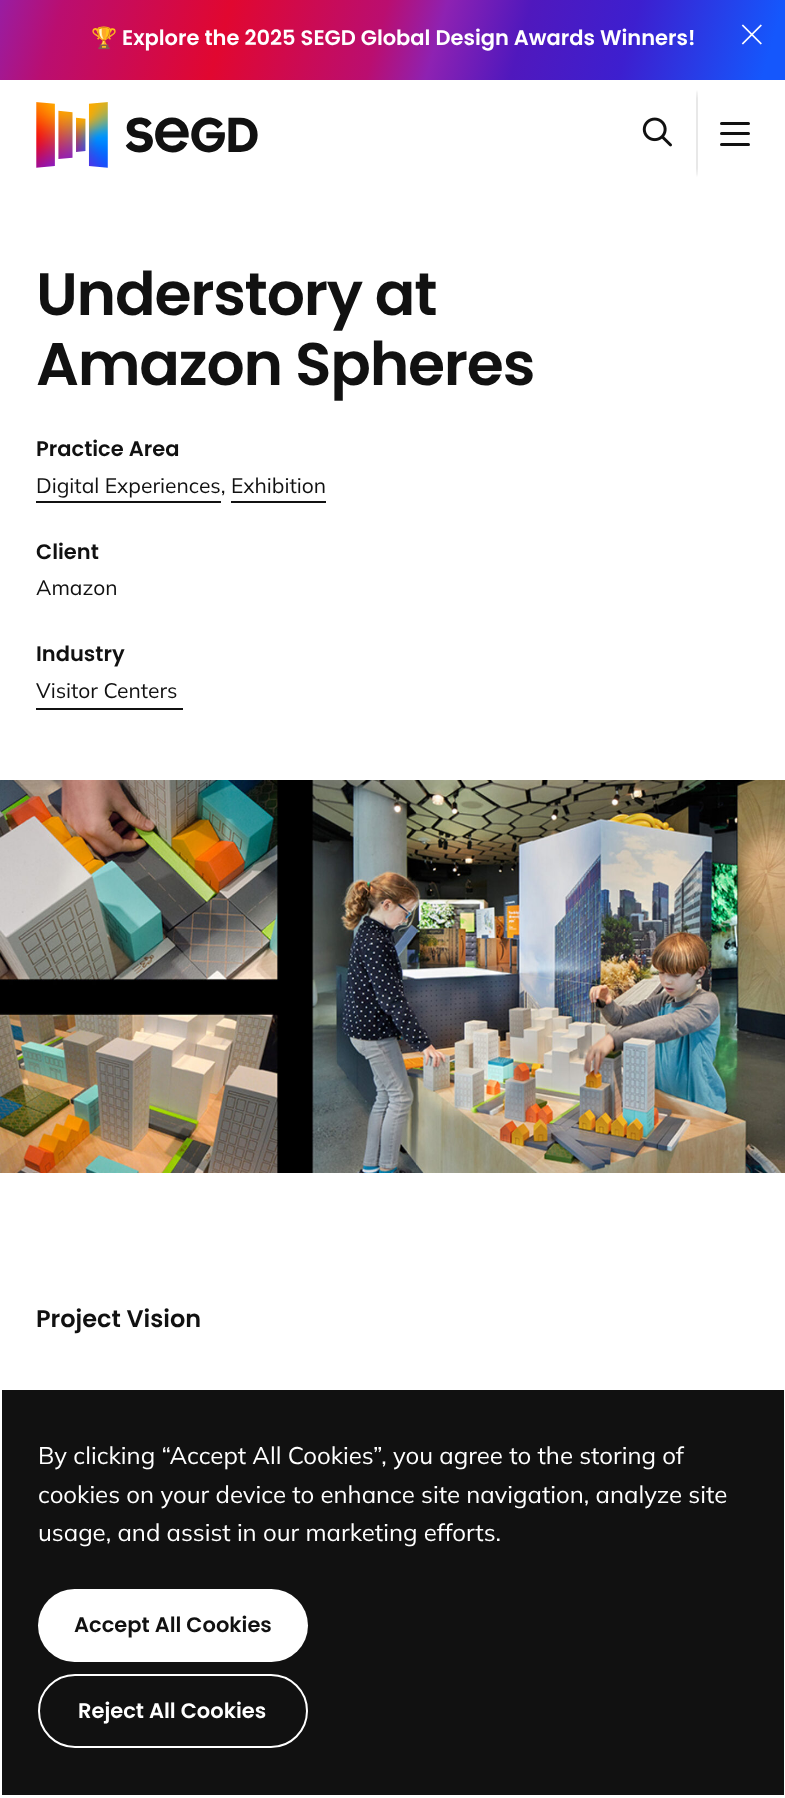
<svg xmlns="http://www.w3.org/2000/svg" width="785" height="1798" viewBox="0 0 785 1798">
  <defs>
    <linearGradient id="g1" gradientUnits="userSpaceOnUse" x1="-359" y1="-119" x2="752" y2="199"><stop offset="0.28" stop-color="#5018bd"/><stop offset="0.31" stop-color="#8e22b2"/><stop offset="0.38" stop-color="#ba0e70"/><stop offset="0.52" stop-color="#e10730"/><stop offset="0.65" stop-color="#ba0e70"/><stop offset="0.7" stop-color="#8e22b2"/><stop offset="0.77" stop-color="#5018bd"/><stop offset="0.86" stop-color="#3d1fcf"/><stop offset="0.98" stop-color="#1557fc"/></linearGradient>
    <linearGradient id="g2" gradientUnits="userSpaceOnUse" x1="697" y1="90" x2="697" y2="177"><stop offset="0" stop-color="#fff"/><stop offset="0.03" stop-color="#f4f4f4"/><stop offset="0.1" stop-color="#e8e8e8"/><stop offset="0.9" stop-color="#e8e8e8"/><stop offset="0.97" stop-color="#f4f4f4"/><stop offset="1" stop-color="#fff"/></linearGradient>
  </defs>
  <rect width="100%" height="100%" fill="#fff"/>
  <path d="M0 0h785v80H0z" fill="url(#g1)"/>
  <image x="741" y="24" width="21" height="21" href="img/1.png"/>
  <image x="36" y="102" width="222" height="66" href="img/2.png"/>
  <image x="642" y="117" width="30" height="30" href="img/3.png"/>
  <path d="M696 90h2v87H696z" fill="url(#g2)"/>
  <rect x="720" y="132" width="30" height="3" rx="1.5" fill="#111"/>
  <rect x="720" y="122" width="30" height="3" rx="1.5" fill="#111"/>
  <rect x="720" y="143" width="30" height="3" rx="1.5" fill="#111"/>
  <path d="M36 501h185v2H36z" fill="#111"/>
  <path d="M231 501h95v2H231z" fill="#111"/>
  <path d="M36 708h147v2H36z" fill="#111"/>
  <image x="0" y="780" width="785" height="393" href="img/4.png"/>
  <path d="M2 1390h782v405H2z" fill="#111"/>
  <rect x="38" y="1589" width="270" height="73" rx="36.5" fill="#fff"/>
  <rect x="39" y="1675" width="268" height="72" rx="36" fill="none" stroke="#fff" stroke-width="2"/>
  <text x="91" y="45" font-family="Noto Color Emoji" font-size="21" font-weight="bold" fill="#fff">🏆</text>
  <text x="122" y="45" font-family="Poppins" font-size="21" font-weight="600" fill="#fff">Explore the 2025 SEGD Global Design Awards Winners!</text>
  <g font-family="Poppins" font-size="60" font-weight="600" letter-spacing="-1.25" fill="#111">
    <text x="36" y="315">Understory at</text>
    <text x="36" y="385">Amazon Spheres</text>
  </g>
  <text x="36" y="456" font-family="Poppins" font-size="21" font-weight="600" fill="#111">Practice Area</text>
  <text x="36" y="493" font-family="Mulish" font-size="21" fill="#111">Digital Experiences, Exhibition</text>
  <text x="36" y="559" font-family="Poppins" font-size="21" font-weight="600" fill="#111">Client</text>
  <text x="36" y="595" font-family="Mulish" font-size="21" fill="#111">Amazon</text>
  <text x="36" y="661" font-family="Poppins" font-size="21" font-weight="600" fill="#111">Industry</text>
  <text x="36" y="698" font-family="Mulish" font-size="21" fill="#111">Visitor Centers</text>
  <text x="36" y="1327" font-family="Poppins" font-size="24" font-weight="600" fill="#111">Project Vision</text>
  <g font-family="Mulish" font-size="24" fill="#fff">
    <text x="38" y="1464">By clicking “Accept All Cookies”, you agree to the storing of</text>
    <text x="38" y="1503">cookies on your device to enhance site navigation, analyze site</text>
    <text x="38" y="1541">usage, and assist in our marketing efforts.</text>
  </g>
  <text x="74" y="1632" font-family="Poppins" font-size="21" font-weight="600" fill="#111">Accept All Cookies</text>
  <text x="78" y="1718" font-family="Poppins" font-size="21" font-weight="600" fill="#fff">Reject All Cookies</text>
</svg>
